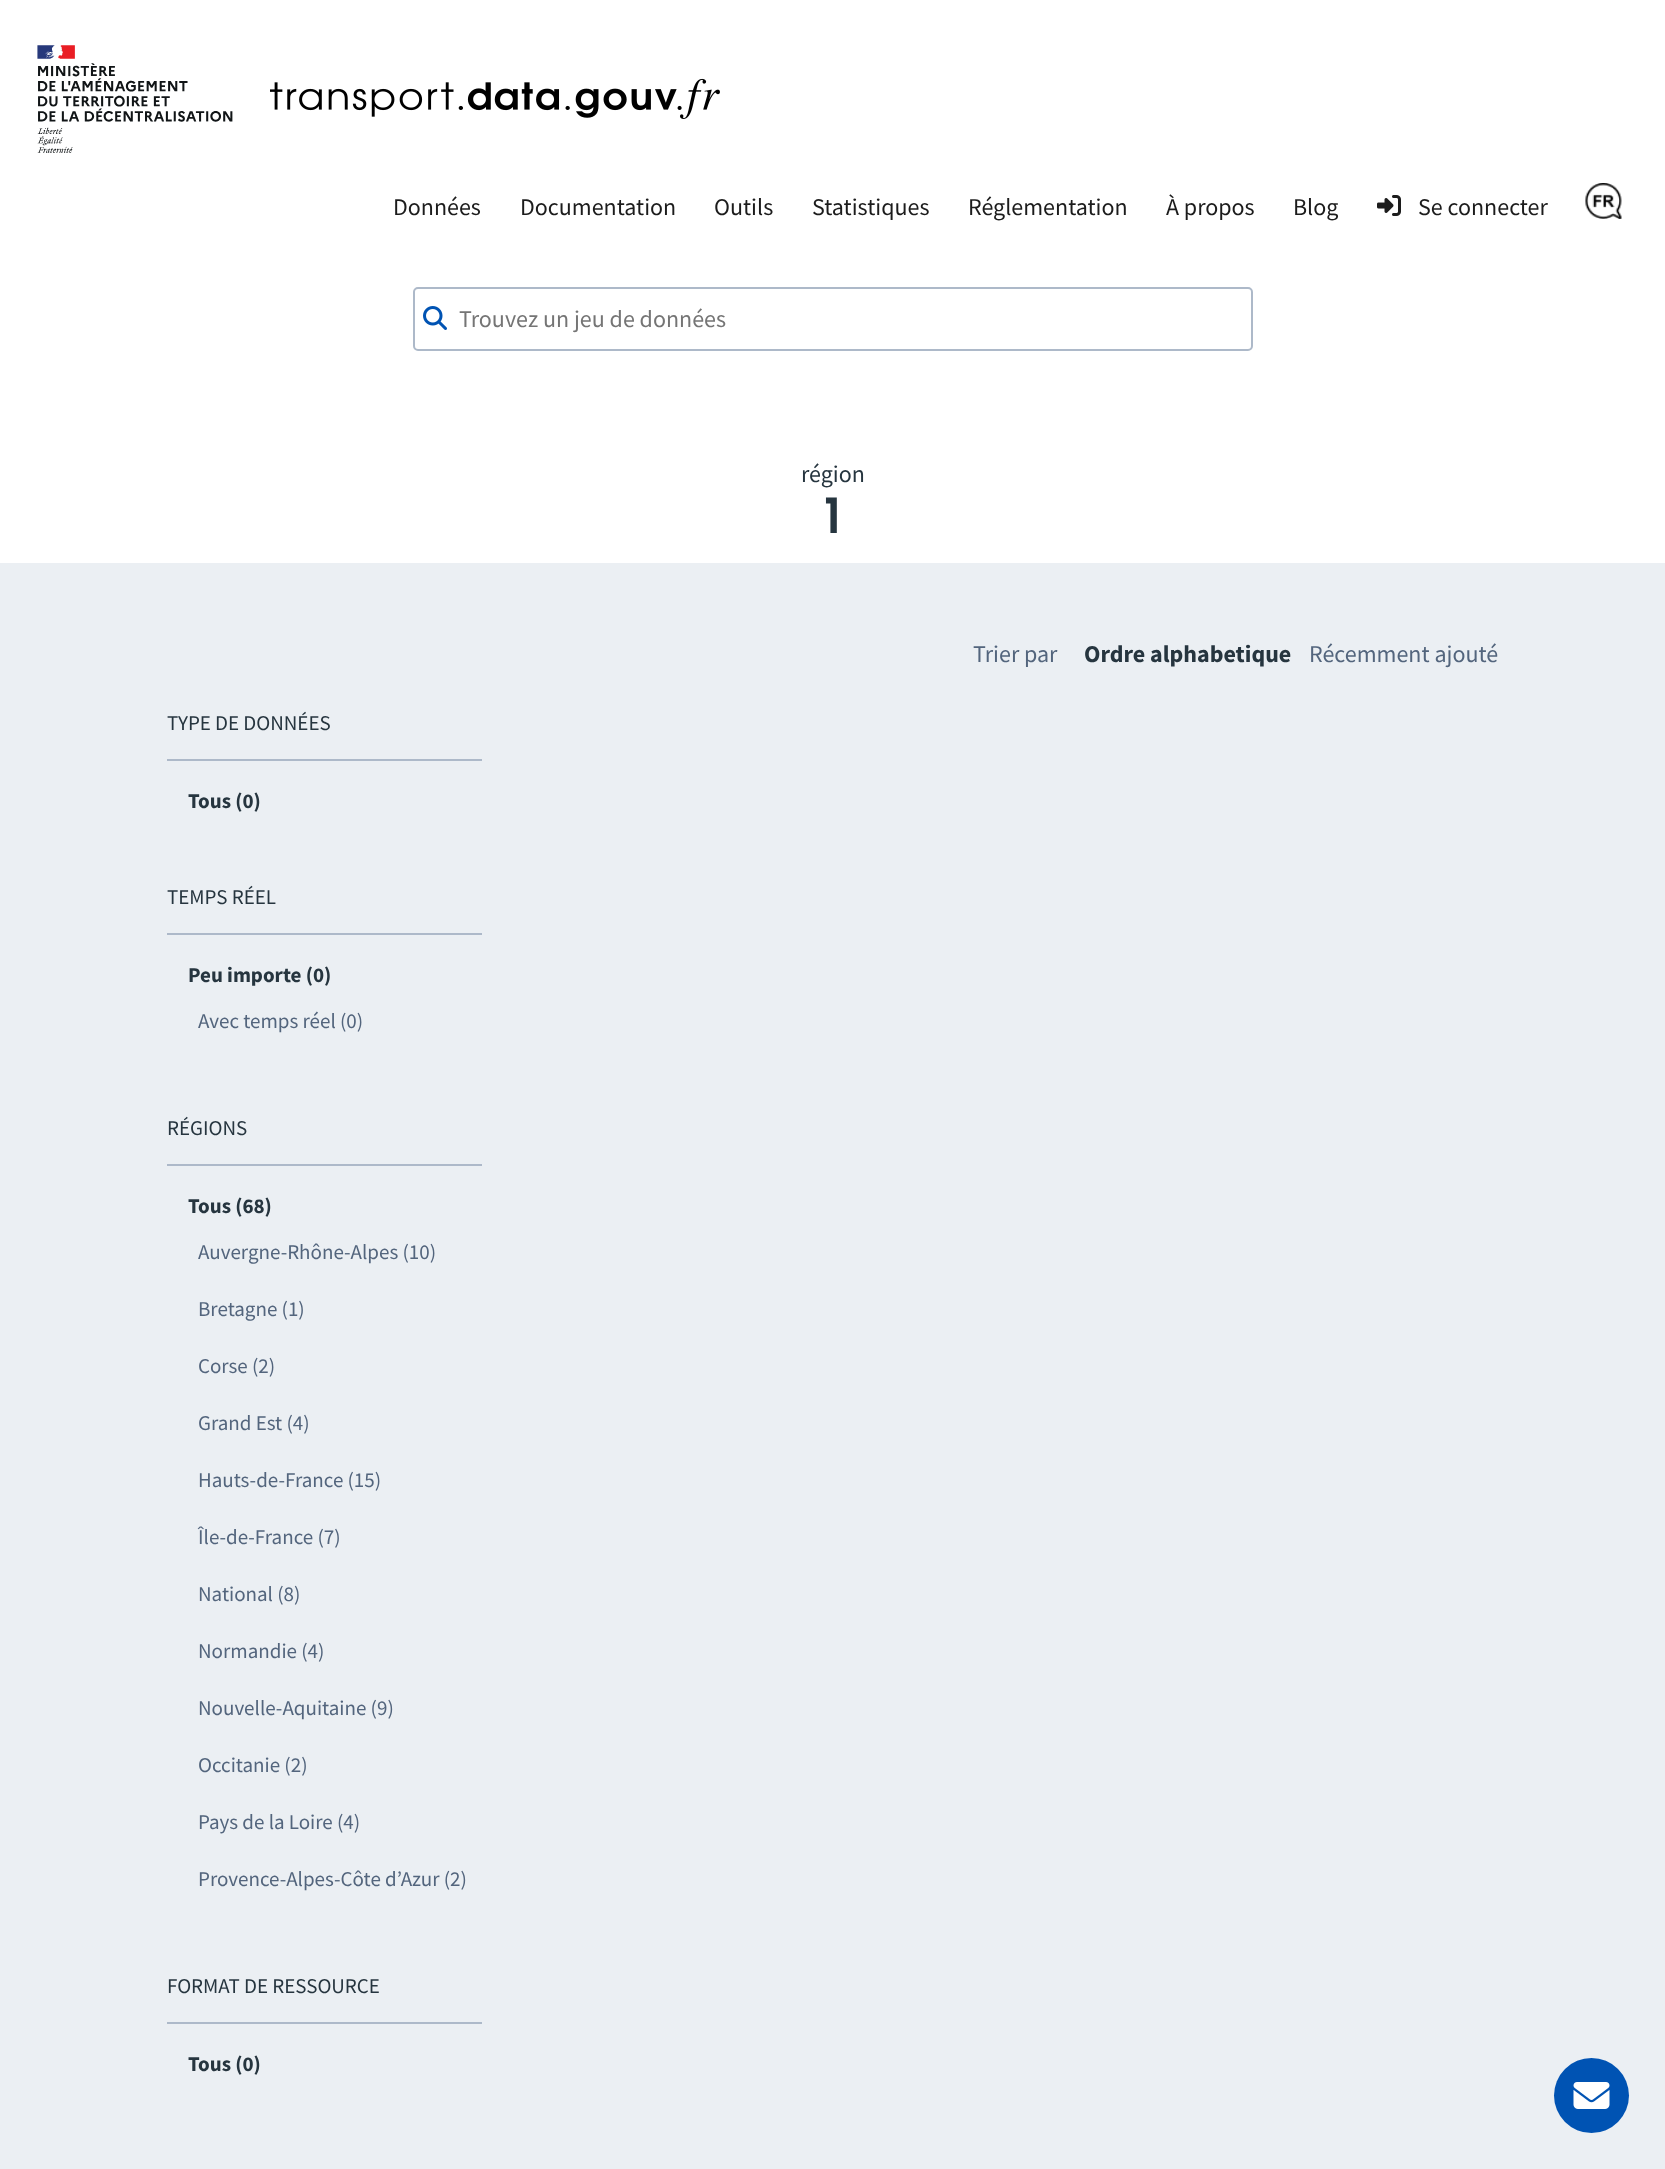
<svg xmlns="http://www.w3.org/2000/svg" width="1665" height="2169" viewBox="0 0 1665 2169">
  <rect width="100%" height="100%" fill="#fff"/>
  <image x="37" y="45" width="196" height="108" href="img/1.png"/>
  <image x="270" y="78" width="450" height="41" href="img/2.png"/>
  <image x="1377" y="195" width="24" height="21" href="img/3.png"/>
  <image x="1585" y="183" width="37" height="36" href="img/4.png"/>
  <rect x="414" y="288" width="838" height="62" rx="4" fill="none" stroke="#adb9c9" stroke-width="2"/>
  <image x="423" y="306" width="24" height="24" href="img/5.png"/>
  <path d="M0 563h1665v1606H0z" fill="#ebeff3"/>
  <path d="M167 759h315v2H167z" fill="#adb9c9"/>
  <path d="M167 933h315v2H167z" fill="#adb9c9"/>
  <path d="M167 1164h315v2H167z" fill="#adb9c9"/>
  <path d="M167 2022h315v2H167z" fill="#adb9c9"/>
  <circle cx="1591.5" cy="2095.5" r="37.5" fill="#0053b3"/>
  <image x="1573" y="2082" width="37" height="27" href="img/6.png"/>
  <g font-family="Source Sans Pro" font-size="24" fill="#1c1c1c">
    <text x="393" y="215">Données</text>
    <text x="520" y="215">Documentation</text>
    <text x="714" y="215">Outils</text>
    <text x="812" y="215">Statistiques</text>
    <text x="968" y="215">Réglementation</text>
    <text x="1166" y="215">À propos</text>
    <text x="1293" y="215">Blog</text>
    <text x="1418" y="215">Se connecter</text>
  </g>
  <text x="459" y="327" font-family="Source Sans Pro" font-size="24" fill="#757575">Trouvez un jeu de données</text>
  <text x="801" y="482" font-family="Source Sans Pro" font-size="24" fill="#26353f">région</text>
  <text x="819" y="533" font-family="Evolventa" font-size="48" font-weight="bold" fill="#26353f">1</text>
  <text x="973" y="662" font-family="Source Sans Pro" font-size="24" fill="#53657d">Trier par</text>
  <text x="1084" y="662" font-family="Source Sans Pro" font-size="24" font-weight="bold" fill="#26353f">Ordre alphabetique</text>
  <text x="1309" y="662" font-family="Source Sans Pro" font-size="24" fill="#53657d">Récemment ajouté</text>
  <text x="167" y="730" font-family="Source Sans Pro" font-size="21" fill="#26353f">TYPE DE DONNÉES</text>
  <text x="188" y="808" font-family="Source Sans Pro" font-size="21" font-weight="bold" fill="#26353f">Tous (0)</text>
  <text x="167" y="904" font-family="Source Sans Pro" font-size="21" fill="#26353f">TEMPS RÉEL</text>
  <text x="188" y="982" font-family="Source Sans Pro" font-size="21" font-weight="bold" fill="#26353f">Peu importe (0)</text>
  <text x="198" y="1028" font-family="Source Sans Pro" font-size="21" fill="#53657d">Avec temps réel (0)</text>
  <text x="167" y="1135" font-family="Source Sans Pro" font-size="21" fill="#26353f">RÉGIONS</text>
  <text x="188" y="1213" font-family="Source Sans Pro" font-size="21" font-weight="bold" fill="#26353f">Tous (68)</text>
  <g font-family="Source Sans Pro" font-size="21" fill="#53657d">
    <text x="198" y="1259">Auvergne-Rhône-Alpes (10)</text>
    <text x="198" y="1316">Bretagne (1)</text>
    <text x="198" y="1373">Corse (2)</text>
    <text x="198" y="1430">Grand Est (4)</text>
    <text x="198" y="1487">Hauts-de-France (15)</text>
    <text x="198" y="1544">Île-de-France (7)</text>
    <text x="198" y="1601">National (8)</text>
    <text x="198" y="1658">Normandie (4)</text>
    <text x="198" y="1715">Nouvelle-Aquitaine (9)</text>
    <text x="198" y="1772">Occitanie (2)</text>
    <text x="198" y="1829">Pays de la Loire (4)</text>
    <text x="198" y="1886">Provence-Alpes-Côte d’Azur (2)</text>
  </g>
  <text x="167" y="1993" font-family="Source Sans Pro" font-size="21" fill="#26353f">FORMAT DE RESSOURCE</text>
  <text x="188" y="2071" font-family="Source Sans Pro" font-size="21" font-weight="bold" fill="#26353f">Tous (0)</text>
</svg>
